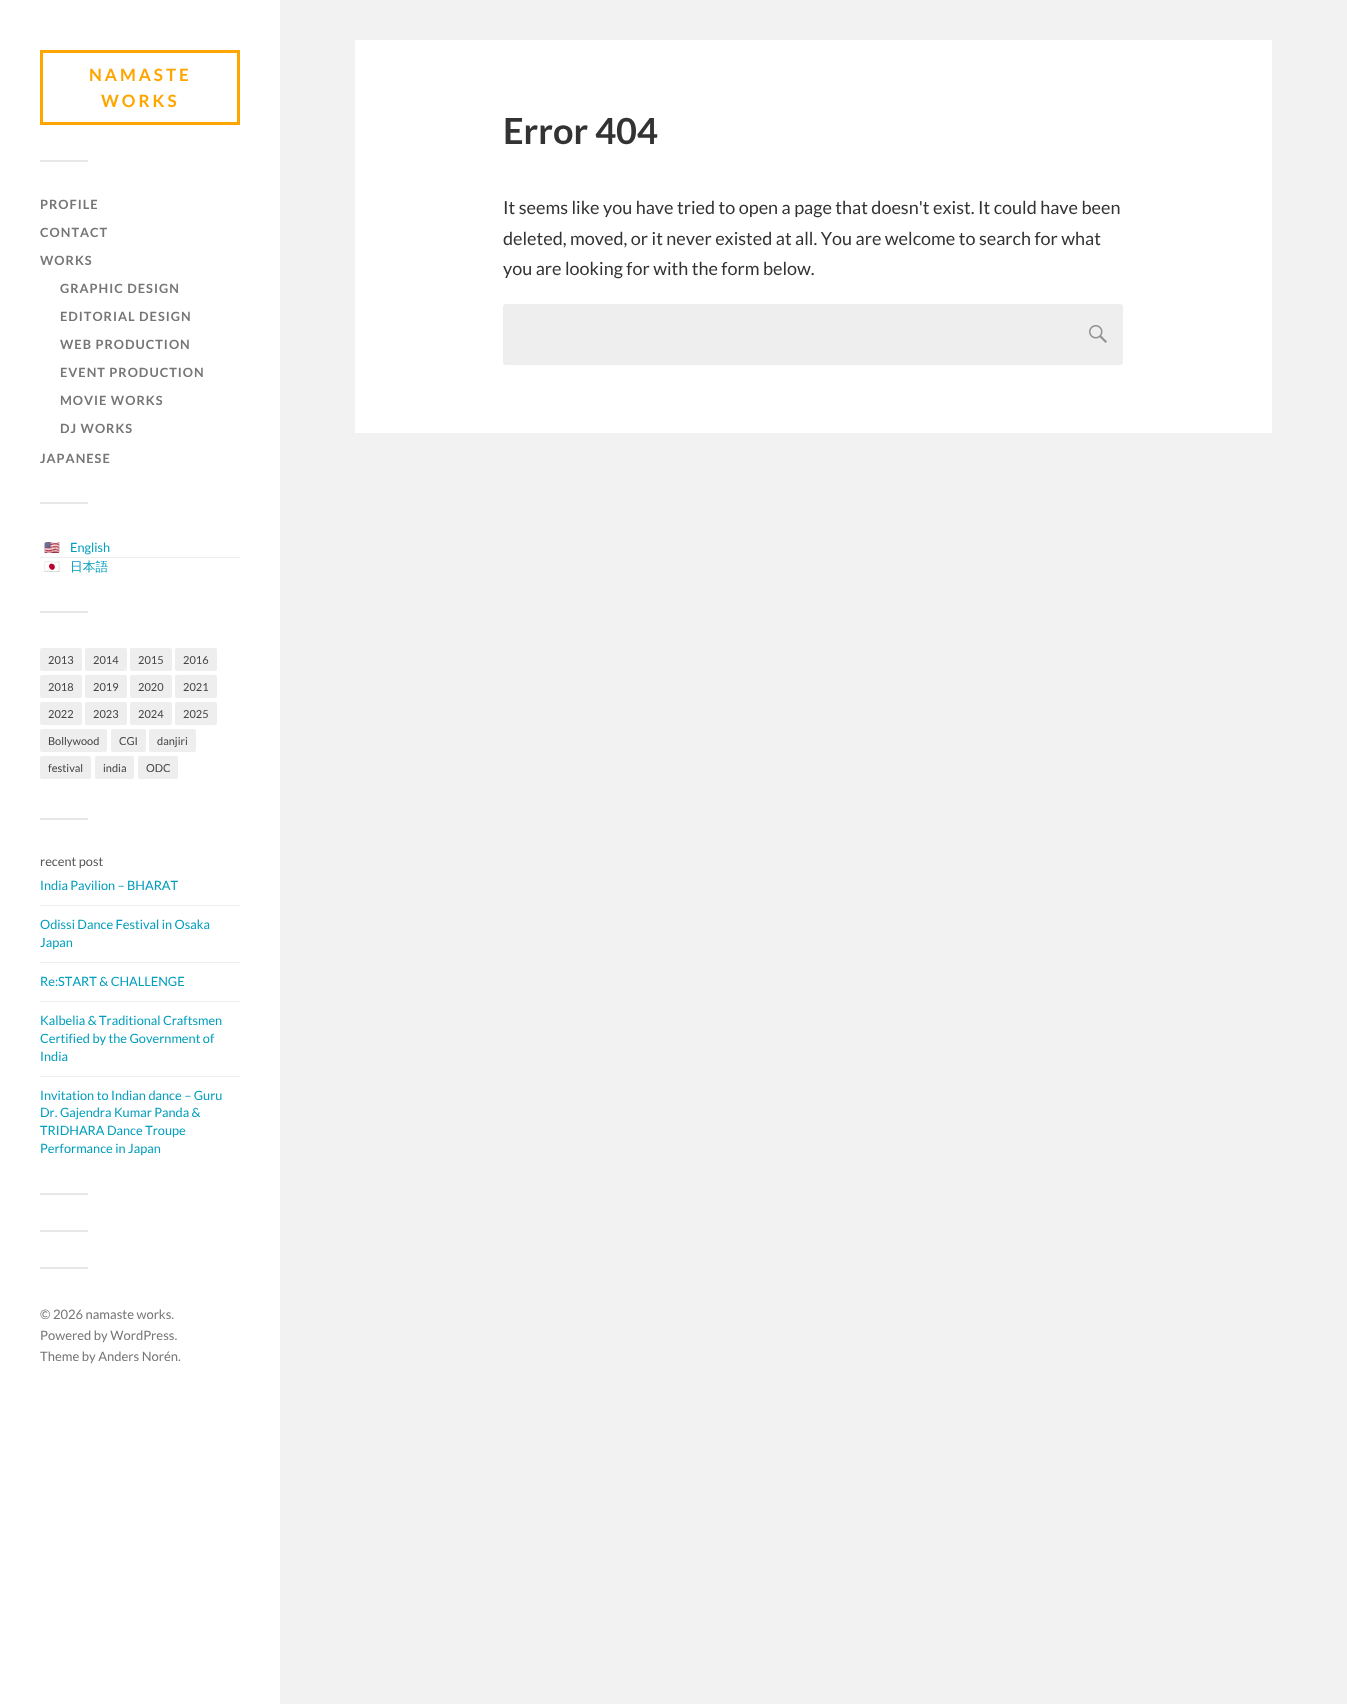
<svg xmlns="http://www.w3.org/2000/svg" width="1347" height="1704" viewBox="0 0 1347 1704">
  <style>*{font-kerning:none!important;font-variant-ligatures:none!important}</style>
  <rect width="100%" height="100%" fill="#f2f2f2"/>
  <path d="M0 0h280v1704H0z" fill="#fff"/>
  <path d="M41.5 51.5h197v72H41.5z" fill="none" stroke="#ffa500" stroke-width="3"/>
  <path d="M40 160h48v2H40z" fill="#e7e7e7"/>
  <path d="M40 502h48v2H40z" fill="#e7e7e7"/>
  <path d="M40 557h200v1H40z" fill="#eee"/>
  <path d="M40 611h48v2H40z" fill="#e7e7e7"/>
  <rect x="40" y="648" width="42" height="23" rx="2" fill="#eee"/>
  <rect x="85" y="648" width="42" height="23" rx="2" fill="#eee"/>
  <rect x="130" y="648" width="42" height="23" rx="2" fill="#eee"/>
  <rect x="175" y="648" width="42" height="23" rx="2" fill="#eee"/>
  <rect x="40" y="675" width="42" height="23" rx="2" fill="#eee"/>
  <rect x="85" y="675" width="42" height="23" rx="2" fill="#eee"/>
  <rect x="130" y="675" width="42" height="23" rx="2" fill="#eee"/>
  <rect x="175" y="675" width="42" height="23" rx="2" fill="#eee"/>
  <rect x="40" y="702" width="42" height="23" rx="2" fill="#eee"/>
  <rect x="85" y="702" width="42" height="23" rx="2" fill="#eee"/>
  <rect x="130" y="702" width="42" height="23" rx="2" fill="#eee"/>
  <rect x="175" y="702" width="42" height="23" rx="2" fill="#eee"/>
  <rect x="40" y="729" width="67" height="23" rx="2" fill="#eee"/>
  <rect x="111" y="729" width="35" height="23" rx="2" fill="#eee"/>
  <rect x="149" y="729" width="47" height="23" rx="2" fill="#eee"/>
  <rect x="40" y="756" width="51" height="23" rx="2" fill="#eee"/>
  <rect x="95" y="756" width="39" height="23" rx="2" fill="#eee"/>
  <rect x="138" y="756" width="40" height="23" rx="2" fill="#eee"/>
  <path d="M40 818h48v2H40z" fill="#e7e7e7"/>
  <path d="M40 905h200v1H40z" fill="#eee"/>
  <path d="M40 962h200v1H40z" fill="#eee"/>
  <path d="M40 1001h200v1H40z" fill="#eee"/>
  <path d="M40 1076h200v1H40z" fill="#eee"/>
  <path d="M40 1193h48v2H40z" fill="#e7e7e7"/>
  <path d="M40 1230h48v2H40z" fill="#e7e7e7"/>
  <path d="M40 1267h48v2H40z" fill="#e7e7e7"/>
  <path d="M355 40h917v393H355z" fill="#fff"/>
  <rect x="503" y="304" width="620" height="61" rx="3" fill="#eee"/>
  <image x="1089" y="325" width="18" height="18" href="img/1.png"/>
  <g font-family="Lato" font-size="17" font-weight="bold" letter-spacing="3" fill="#ffa500">
    <text x="89" y="81">NAMASTE</text>
    <text x="101" y="107">WORKS</text>
  </g>
  <g font-family="Lato" font-size="12.75" font-weight="bold" letter-spacing="1" fill="#767676">
    <text x="40" y="209">PROFILE</text>
    <text x="40" y="237">CONTACT</text>
    <text x="40" y="265">WORKS</text>
    <text x="60" y="293">GRAPHIC DESIGN</text>
    <text x="60" y="321">EDITORIAL DESIGN</text>
    <text x="60" y="349">WEB PRODUCTION</text>
    <text x="60" y="377">EVENT PRODUCTION</text>
    <text x="60" y="405">MOVIE WORKS</text>
    <text x="60" y="433">DJ WORKS</text>
    <text x="40" y="463">JAPANESE</text>
  </g>
  <text x="44" y="552" font-family="Noto Color Emoji" font-size="12.75" fill="#555">🇺🇸</text>
  <text x="70" y="552" font-family="Lato" font-size="12.75" fill="#019ebd">English</text>
  <text x="44" y="571" font-family="Noto Color Emoji" font-size="12.75" fill="#555">🇯🇵</text>
  <text x="70" y="571" font-family="WenQuanYi Zen Hei" font-size="12.75" font-weight="500" fill="#019ebd">日本語</text>
  <g font-family="Lato" font-size="11" fill="#444">
    <text x="48" y="664">2013</text>
    <text x="93" y="664">2014</text>
    <text x="138" y="664">2015</text>
    <text x="183" y="664">2016</text>
    <text x="48" y="691">2018</text>
    <text x="93" y="691">2019</text>
    <text x="138" y="691">2020</text>
    <text x="183" y="691">2021</text>
    <text x="48" y="718">2022</text>
    <text x="93" y="718">2023</text>
    <text x="138" y="718">2024</text>
    <text x="183" y="718">2025</text>
    <text x="48" y="745">Bollywood</text>
    <text x="119" y="745">CGI</text>
    <text x="157" y="745">danjiri</text>
    <text x="48" y="772">festival</text>
    <text x="103" y="772">india</text>
    <text x="146" y="772">ODC</text>
  </g>
  <text x="40" y="866" font-family="Lato" font-size="12.75" fill="#555">recent post</text>
  <g font-family="Lato" font-size="12.75" fill="#019ebd">
    <text x="40" y="890">India Pavilion – BHARAT</text>
    <text x="40" y="929">Odissi Dance Festival in Osaka</text>
    <text x="40" y="947">Japan</text>
    <text x="40" y="986">Re:START &amp; CHALLENGE</text>
    <text x="40" y="1025">Kalbelia &amp; Traditional Craftsmen</text>
    <text x="40" y="1043">Certified by the Government of</text>
    <text x="40" y="1061">India</text>
    <text x="40" y="1100">Invitation to Indian dance – Guru</text>
    <text x="40" y="1117">Dr. Gajendra Kumar Panda &amp;</text>
    <text x="40" y="1135">TRIDHARA Dance Troupe</text>
    <text x="40" y="1153">Performance in Japan</text>
  </g>
  <g font-family="Lato" font-size="13" fill="#767676">
    <text x="40" y="1319">© 2026 namaste works.</text>
    <text x="40" y="1340">Powered by WordPress.</text>
    <text x="40" y="1361">Theme by Anders Norén.</text>
  </g>
  <text x="503" y="144" font-family="Lato" font-size="36" font-weight="bold" fill="#333">Error 404</text>
  <g font-family="Lato" font-size="18" fill="#333">
    <text x="503" y="214">It seems like you have tried to open a page that doesn't exist. It could have been</text>
    <text x="503" y="245">deleted, moved, or it never existed at all. You are welcome to search for what</text>
    <text x="503" y="275">you are looking for with the form below.</text>
  </g>
</svg>
